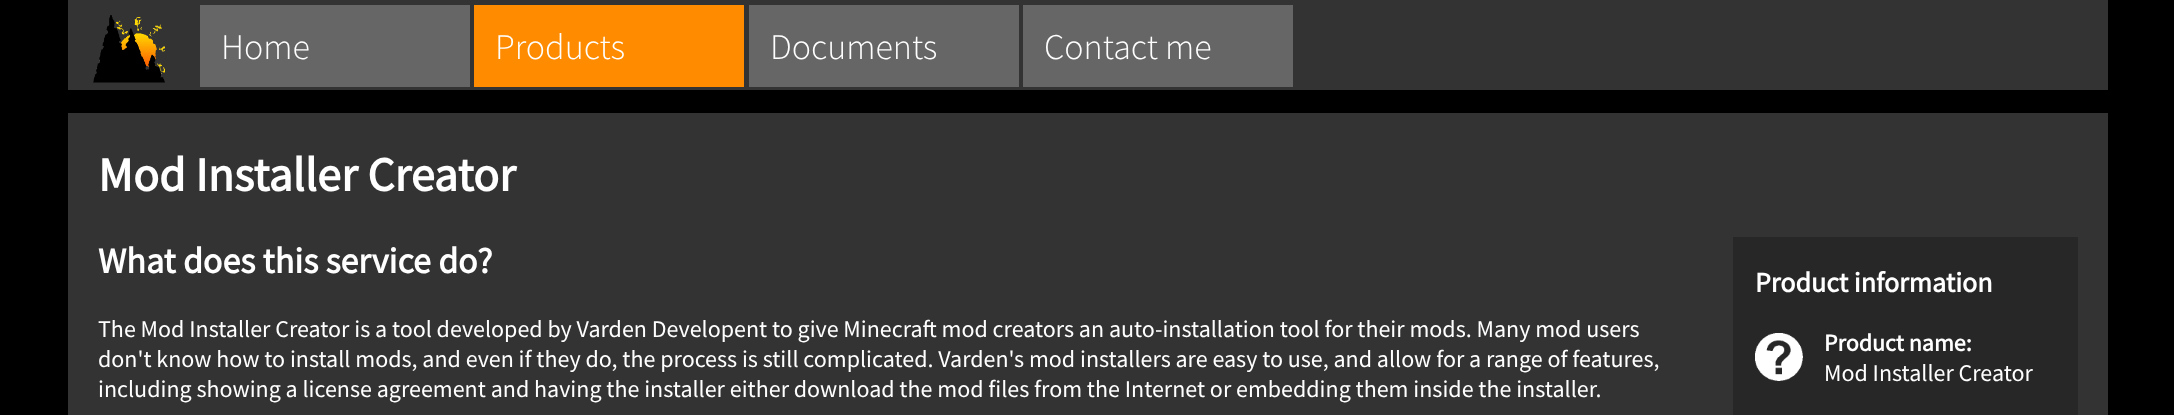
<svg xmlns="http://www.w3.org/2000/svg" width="2174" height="415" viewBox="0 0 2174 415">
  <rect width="100%" height="100%" fill="#000"/>
  <path d="M68 0h2040v415H68z" fill="#333"/>
  <image x="93" y="15" width="72" height="68" href="img/1.png"/>
  <path d="M200 5h270v82H200z" fill="#666"/>
  <path d="M474 5h270v82H474z" fill="#ff8c00"/>
  <path d="M749 5h270v82H749z" fill="#666"/>
  <path d="M1023 5h270v82H1023z" fill="#666"/>
  <path d="M68 90h2040v23H68z" fill="#000"/>
  <path d="M1733 237h345v178H1733z" fill="#272727"/>
  <image x="1755" y="333" width="48" height="48" href="img/2.png"/>
  <g font-family="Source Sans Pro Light" font-size="36" font-weight="300" fill="#fff">
    <text x="221" y="59">Home</text>
    <text x="495" y="59">Products</text>
    <text x="770" y="59">Documents</text>
    <text x="1044" y="59">Contact me</text>
  </g>
  <text x="98" y="191" font-family="Source Sans Pro" font-size="48" font-weight="bold" fill="#fff">Mod Installer Creator</text>
  <text x="98" y="273" font-family="Source Sans Pro" font-size="36" font-weight="bold" fill="#fff">What does this service do?</text>
  <g font-family="Source Sans Pro" font-size="24" fill="#fff">
    <text x="98" y="337">The Mod Installer Creator is a tool developed by Varden Developent to give Minecraft mod creators an auto-installation tool for their mods. Many mod users</text>
    <text x="98" y="367">don't know how to install mods, and even if they do, the process is still complicated. Varden's mod installers are easy to use, and allow for a range of features,</text>
    <text x="98" y="397">including showing a license agreement and having the installer either download the mod files from the Internet or embedding them inside the installer.</text>
  </g>
  <text x="1755" y="292" font-family="Source Sans Pro" font-size="28" font-weight="bold" fill="#fff">Product information</text>
  <text x="1824" y="351" font-family="Source Sans Pro" font-size="24" font-weight="bold" fill="#fff">Product name:</text>
  <text x="1824" y="381" font-family="Source Sans Pro" font-size="24" fill="#fff">Mod Installer Creator</text>
</svg>
